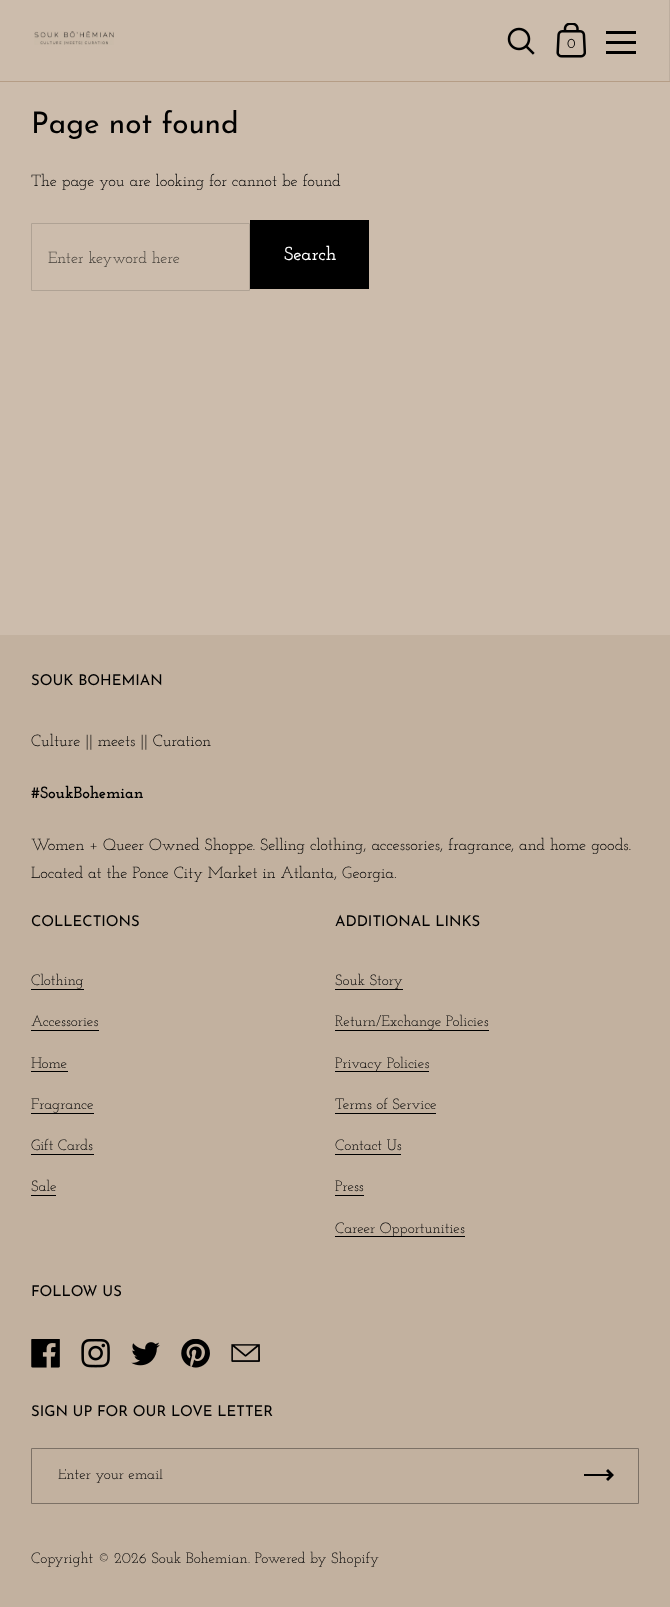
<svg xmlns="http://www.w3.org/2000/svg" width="670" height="1607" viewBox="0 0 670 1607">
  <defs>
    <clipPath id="clip1"><path d="M584 1469h30v14H584z"/></clipPath>
    <clipPath id="clip2"><path d="M48 251h181v17H48z"/></clipPath>
    <clipPath id="clip3"><path d="M58 1469h555v15H58z"/></clipPath>
  </defs>
  <rect width="100%" height="100%" fill="#ccbcac"/>
  <path d="M0 81h670v1H0z" fill="#b59d86"/>
  <path d="M669 0h1v81H669z" fill="#bcad9e"/>
  <image x="34" y="31" width="80" height="14" href="img/1.png"/>
  <image x="507" y="27" width="28" height="28" href="img/2.png"/>
  <image x="556" y="23" width="30" height="35" href="img/3.png"/>
  <path d="M606 31h30v3H606z" fill="#000"/>
  <path d="M606 41h30v3H606z" fill="#000"/>
  <path d="M606 51h30v3H606z" fill="#000"/>
  <path d="M31.5 223.5h218v67H31.5z" fill="none" stroke="#afa294"/>
  <path d="M250 220h119v69H250z" fill="#000"/>
  <path d="M0 635h670v972H0z" fill="#c2b19f"/>
  <path d="M31 989h53v1H31z" fill="#000"/>
  <path d="M31 1030h68v1H31z" fill="#000"/>
  <path d="M31 1071h37v1H31z" fill="#000"/>
  <path d="M31 1113h63v1H31z" fill="#000"/>
  <path d="M31 1154h63v1H31z" fill="#000"/>
  <path d="M31 1195h25v1H31z" fill="#000"/>
  <path d="M335 989h68v1H335z" fill="#000"/>
  <path d="M335 1030h154v1H335z" fill="#000"/>
  <path d="M335 1071h94v1H335z" fill="#000"/>
  <path d="M335 1113h101v1H335z" fill="#000"/>
  <path d="M335 1154h66v1H335z" fill="#000"/>
  <path d="M335 1195h29v1H335z" fill="#000"/>
  <path d="M335 1236h130v1H335z" fill="#000"/>
  <image x="31" y="1339" width="29" height="29" href="img/4.png"/>
  <image x="81" y="1339" width="29" height="29" href="img/5.png"/>
  <image x="131" y="1342" width="29" height="24" href="img/6.png"/>
  <image x="181" y="1339" width="29" height="29" href="img/7.png"/>
  <image x="231" y="1344" width="29" height="18" href="img/8.png"/>
  <path d="M31.5 1448.5h607v55H31.5z" fill="none" stroke="#7c7166"/>
  <g clip-path="url(#clip1)">
    <path d="M609 1476L606 1479L608 1481L614 1475L608 1469L606 1471L609 1474H571V1476Z" fill="#000" fill-rule="evenodd"/>
  </g>
  <text x="567" y="48" font-family="Josefin Slab" font-size="14" font-weight="600" fill="#000">0</text>
  <text x="31" y="133" font-family="Josefin Sans" font-size="29.75" fill="#000">Page not found</text>
  <text x="31" y="186" font-family="Josefin Slab" font-size="16.25" fill="#000">The page you are looking for cannot be found</text>
  <g clip-path="url(#clip2)">
    <text x="48" y="263" font-family="Josefin Slab" font-size="16.25" fill="#45403a">Enter keyword here</text>
  </g>
  <text x="284" y="260" font-family="Josefin Slab" font-size="19" font-weight="600" fill="#fff">Search</text>
  <text x="31" y="685" font-family="Josefin Sans" font-size="14.9" fill="#000">SOUK BOHEMIAN</text>
  <text x="31" y="746" font-family="Josefin Slab" font-size="16.25" fill="#000">Culture || meets || Curation</text>
  <text x="31" y="798" font-family="Josefin Slab" font-size="16.25" font-weight="bold" fill="#000">#SoukBohemian</text>
  <g font-family="Josefin Slab" font-size="16.25" fill="#000">
    <text x="31" y="850">Women + Queer Owned Shoppe. Selling clothing, accessories, fragrance, and home goods.</text>
    <text x="31" y="878">Located at the Ponce City Market in Atlanta, Georgia.</text>
  </g>
  <text x="31" y="926" font-family="Josefin Sans" font-size="14.9" fill="#000">COLLECTIONS</text>
  <g font-family="Josefin Slab" font-size="15" fill="#000">
    <text x="31" y="985">Clothing</text>
    <text x="31" y="1026">Accessories</text>
    <text x="31" y="1068">Home</text>
    <text x="31" y="1109">Fragrance</text>
    <text x="31" y="1150">Gift Cards</text>
    <text x="31" y="1191">Sale</text>
  </g>
  <text x="335" y="926" font-family="Josefin Sans" font-size="14.9" fill="#000">ADDITIONAL LINKS</text>
  <g font-family="Josefin Slab" font-size="15" fill="#000">
    <text x="335" y="985">Souk Story</text>
    <text x="335" y="1026">Return/Exchange Policies</text>
    <text x="335" y="1068">Privacy Policies</text>
    <text x="335" y="1109">Terms of Service</text>
    <text x="335" y="1150">Contact Us</text>
    <text x="335" y="1191">Press</text>
    <text x="335" y="1233">Career Opportunities</text>
  </g>
  <g font-family="Josefin Sans" font-size="14.9" fill="#000">
    <text x="31" y="1296">FOLLOW US</text>
    <text x="31" y="1416">SIGN UP FOR OUR LOVE LETTER</text>
  </g>
  <g clip-path="url(#clip3)">
    <text x="58" y="1479" font-family="Josefin Slab" font-size="15" fill="#000">Enter your email</text>
  </g>
  <text x="31" y="1563" font-family="Josefin Slab" font-size="15" fill="#000">Copyright © 2026 Souk Bohemian. Powered by Shopify</text>
</svg>
